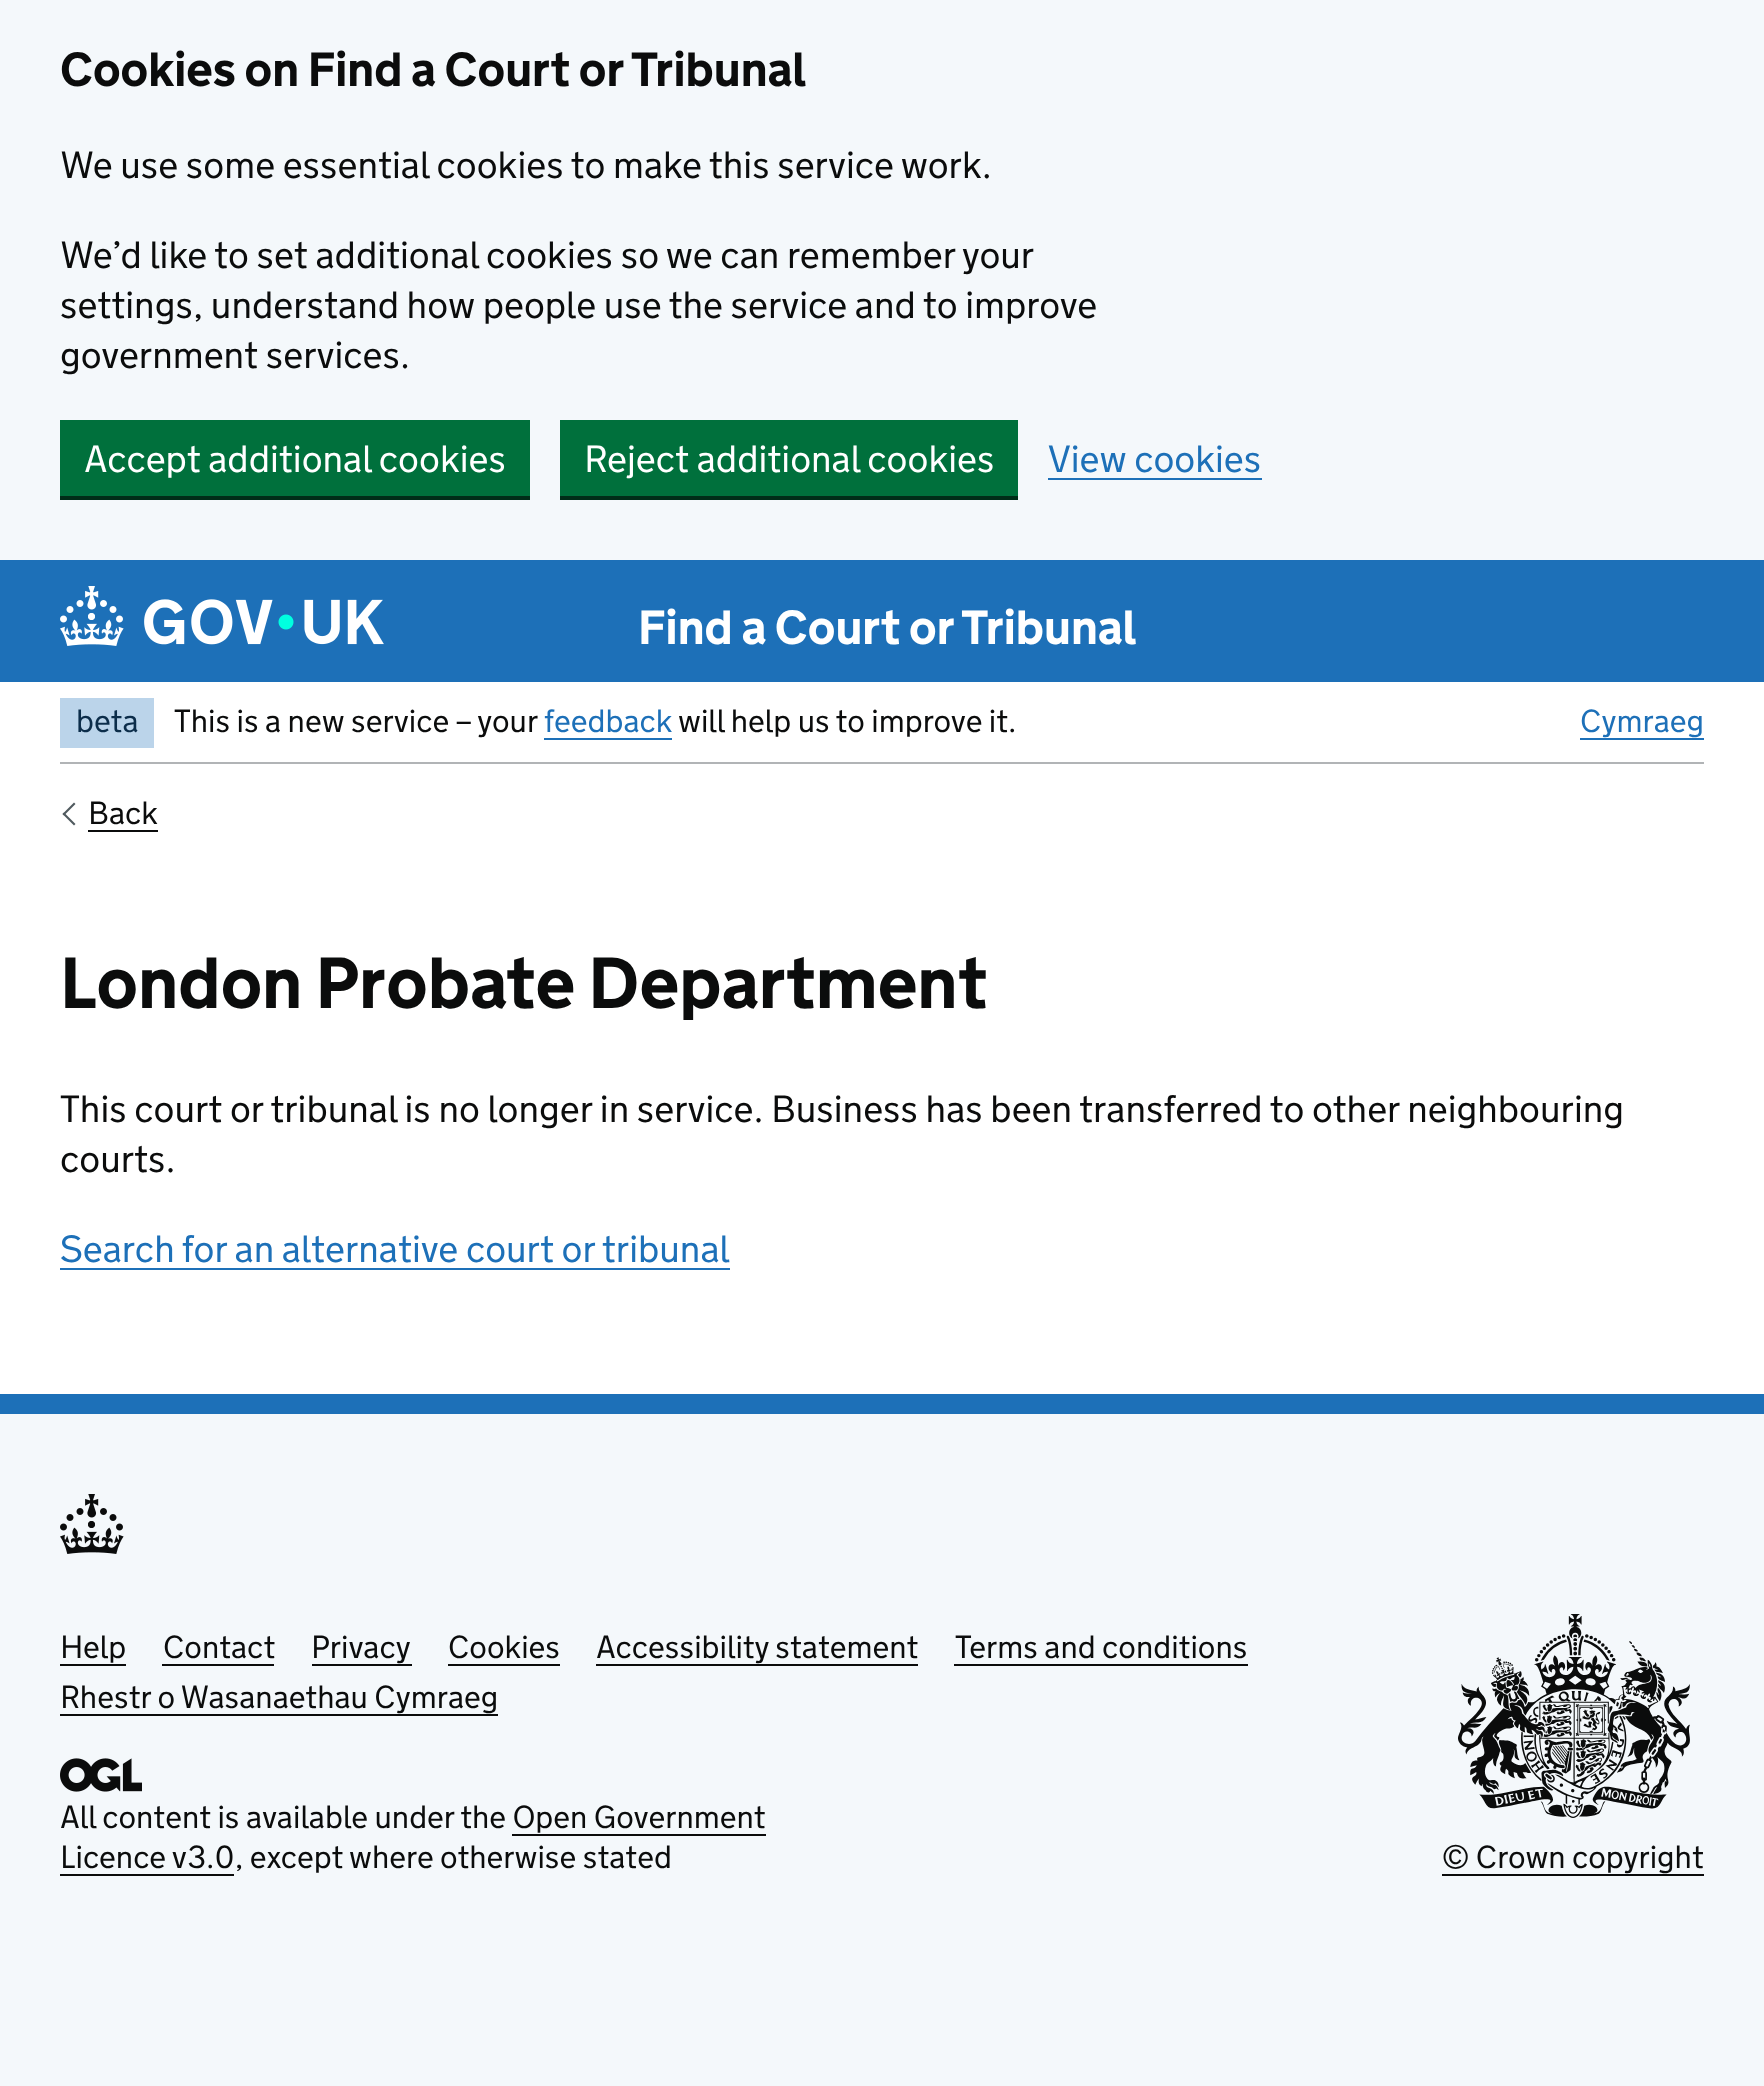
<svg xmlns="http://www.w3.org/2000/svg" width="1764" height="2086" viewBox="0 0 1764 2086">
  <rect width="100%" height="100%" fill="#f4f8fb"/>
  <path d="M0 682h1764v712H0z" fill="#fff"/>
  <path d="M60 496h470v4H60z" fill="#002d18"/>
  <path d="M60 420h470v76H60z" fill="#00703c"/>
  <path d="M560 496h458v4H560z" fill="#002d18"/>
  <path d="M560 420h458v76H560z" fill="#00703c"/>
  <path d="M1048 478h214v2H1048z" fill="#1d70b8"/>
  <path d="M0 560h1764v122H0z" fill="#1d70b8"/>
  <image x="60" y="586" width="324" height="60" href="img/1.png"/>
  <path d="M60 762h1644v2H60z" fill="#b1b4b6"/>
  <path d="M60 698h94v50H60z" fill="#bbd4ea"/>
  <path d="M544 738h128v2H544z" fill="#1d70b8"/>
  <path d="M1580 738h124v2H1580z" fill="#1d70b8"/>
  <path d="M74 825.5L62.5 814L64 812.5L75.5 824Z" fill="#505a5f"/>
  <path d="M64 815.5L62.5 814L74 802.5L75.5 804Z" fill="#505a5f"/>
  <path d="M88 830h70v2H88z" fill="#0b0c0c"/>
  <path d="M60 1268h670v2H60z" fill="#1d70b8"/>
  <path d="M0 1394h1764v20H0z" fill="#1d70b8"/>
  <image x="60" y="1494" width="64" height="60" href="img/2.png"/>
  <path d="M60 1664h66v2H60z" fill="#0b0c0c"/>
  <path d="M162 1664h112v2H162z" fill="#0b0c0c"/>
  <path d="M312 1664h100v2H312z" fill="#0b0c0c"/>
  <path d="M448 1664h112v2H448z" fill="#0b0c0c"/>
  <path d="M596 1664h322v2H596z" fill="#0b0c0c"/>
  <path d="M954 1664h294v2H954z" fill="#0b0c0c"/>
  <path d="M60 1714h438v2H60z" fill="#0b0c0c"/>
  <image x="60" y="1758" width="82" height="34" href="img/3.png"/>
  <path d="M512 1834h254v2H512z" fill="#0b0c0c"/>
  <path d="M60 1874h174v2H60z" fill="#0b0c0c"/>
  <image x="1458" y="1614" width="232" height="204" href="img/4.png"/>
  <path d="M1442 1874h262v2H1442z" fill="#0b0c0c"/>
  <text x="60" y="86" font-family="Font" font-size="48" font-weight="bold" fill="#0b0c0c">Cookies on Find a Court or Tribunal</text>
  <g font-family="Font" font-size="38" font-weight="300" fill="#0b0c0c">
    <text x="60" y="178">We use some essential cookies to make this service work.</text>
    <text x="60" y="268">We’d like to set additional cookies so we can remember your</text>
    <text x="60" y="318">settings, understand how people use the service and to improve</text>
    <text x="60" y="368">government services.</text>
  </g>
  <g font-family="Font" font-size="38" font-weight="300" fill="#fff">
    <text x="84" y="472">Accept additional cookies</text>
    <text x="584" y="472">Reject additional cookies</text>
  </g>
  <text x="1048" y="472" font-family="Font" font-size="38" font-weight="300" fill="#1d70b8">View cookies</text>
  <text x="638" y="644" font-family="Font" font-size="48" font-weight="bold" fill="#fff">Find a Court or Tribunal</text>
  <text x="76" y="732" font-family="Font" font-size="32" font-weight="300" fill="#0c2d4a">beta</text>
  <text x="174" y="732" font-family="Font" font-size="32" font-weight="300" fill="#0b0c0c">This is a new service – your</text>
  <text x="544" y="732" font-family="Font" font-size="32" font-weight="300" fill="#1d70b8">feedback</text>
  <text x="678" y="732" font-family="Font" font-size="32" font-weight="300" fill="#0b0c0c">will help us to improve it.</text>
  <text x="1580" y="732" font-family="Font" font-size="32" font-weight="300" fill="#1d70b8">Cymraeg</text>
  <text x="88" y="824" font-family="Font" font-size="32" font-weight="300" fill="#0b0c0c">Back</text>
  <text x="60" y="1008" font-family="Font" font-size="72" font-weight="bold" fill="#0b0c0c">London Probate Department</text>
  <g font-family="Font" font-size="38" font-weight="300" fill="#0b0c0c">
    <text x="60" y="1122">This court or tribunal is no longer in service. Business has been transferred to other neighbouring</text>
    <text x="60" y="1172">courts.</text>
  </g>
  <text x="60" y="1262" font-family="Font" font-size="38" font-weight="300" fill="#1d70b8">Search for an alternative court or tribunal</text>
  <g font-family="Font" font-size="32" font-weight="300" fill="#0b0c0c">
    <text x="60" y="1658">Help</text>
    <text x="163" y="1658">Contact</text>
    <text x="311" y="1658">Privacy</text>
    <text x="448" y="1658">Cookies</text>
    <text x="596" y="1658">Accessibility statement</text>
    <text x="955" y="1658">Terms and conditions</text>
    <text x="60" y="1708">Rhestr o Wasanaethau Cymraeg</text>
    <text x="60" y="1828">All content is available under the Open Government</text>
    <text x="60" y="1868">Licence v3.0, except where otherwise stated</text>
    <text x="1442" y="1868">© Crown copyright</text>
  </g>
</svg>
